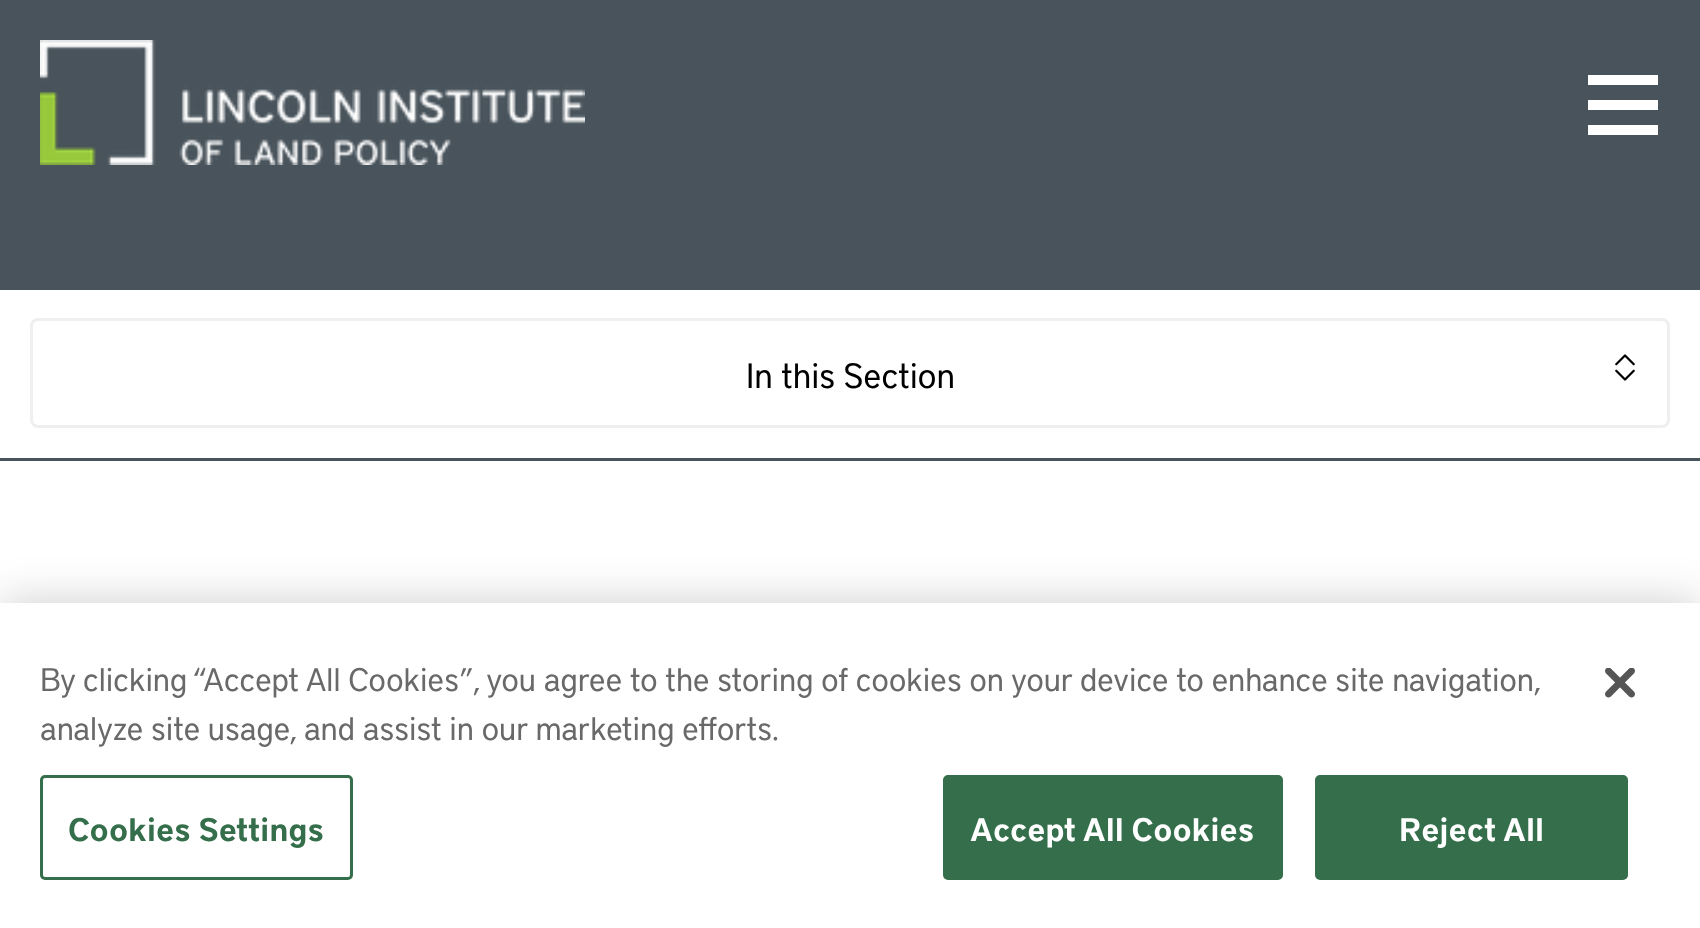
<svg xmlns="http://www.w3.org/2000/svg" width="1700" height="928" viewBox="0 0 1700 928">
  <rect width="100%" height="100%" fill="#fff"/>
  <path d="M0 0h1700v290H0z" fill="#48535b"/>
  <image x="40" y="40" width="545" height="125" href="img/1.png"/>
  <path d="M1588 75h70v10H1588z" fill="#fff"/>
  <path d="M1588 100h70v10H1588z" fill="#fff"/>
  <path d="M1588 125h70v10H1588z" fill="#fff"/>
  <path d="M0 458h1700v3H0z" fill="#48535b"/>
  <rect x="31.5" y="319.5" width="1637" height="107" rx="6.5" fill="none" stroke="#efefef" stroke-width="3"/>
  <image x="1615" y="354" width="20" height="27" href="img/2.png"/>
  <path d="M0 603h1700v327H0z" fill="#00000033" filter="blur(22.5px)"/>
  <path d="M0 603h1700v325H0z" fill="#fff"/>
  <rect x="41.5" y="776.5" width="310" height="102" rx="3.5" fill="none" stroke="#346e4a" stroke-width="3"/>
  <rect x="944.5" y="776.5" width="337" height="102" rx="3.5" fill="#346e4a" stroke="#346e4a" stroke-width="3"/>
  <rect x="1316.5" y="776.5" width="310" height="102" rx="3.5" fill="#346e4a" stroke="#346e4a" stroke-width="3"/>
  <image x="1605" y="668" width="30" height="30" href="img/3.png"/>
  <text x="746" y="388" font-family="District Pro" font-size="35" fill="#000">In this Section</text>
  <g font-family="District Pro" font-size="32.5" fill="#696969">
    <text x="40" y="691">By clicking “Accept All Cookies”, you agree to the storing of cookies on your device to enhance site navigation,</text>
    <text x="40" y="740">analyze site usage, and assist in our marketing efforts.</text>
  </g>
  <text x="68" y="841" font-family="District Pro" font-size="32.5" font-weight="600" letter-spacing="0.3" fill="#346e4a">Cookies Settings</text>
  <g font-family="District Pro" font-size="32.5" font-weight="600" letter-spacing="0.3" fill="#fff">
    <text x="970" y="841">Accept All Cookies</text>
    <text x="1399" y="841">Reject All</text>
  </g>
</svg>
